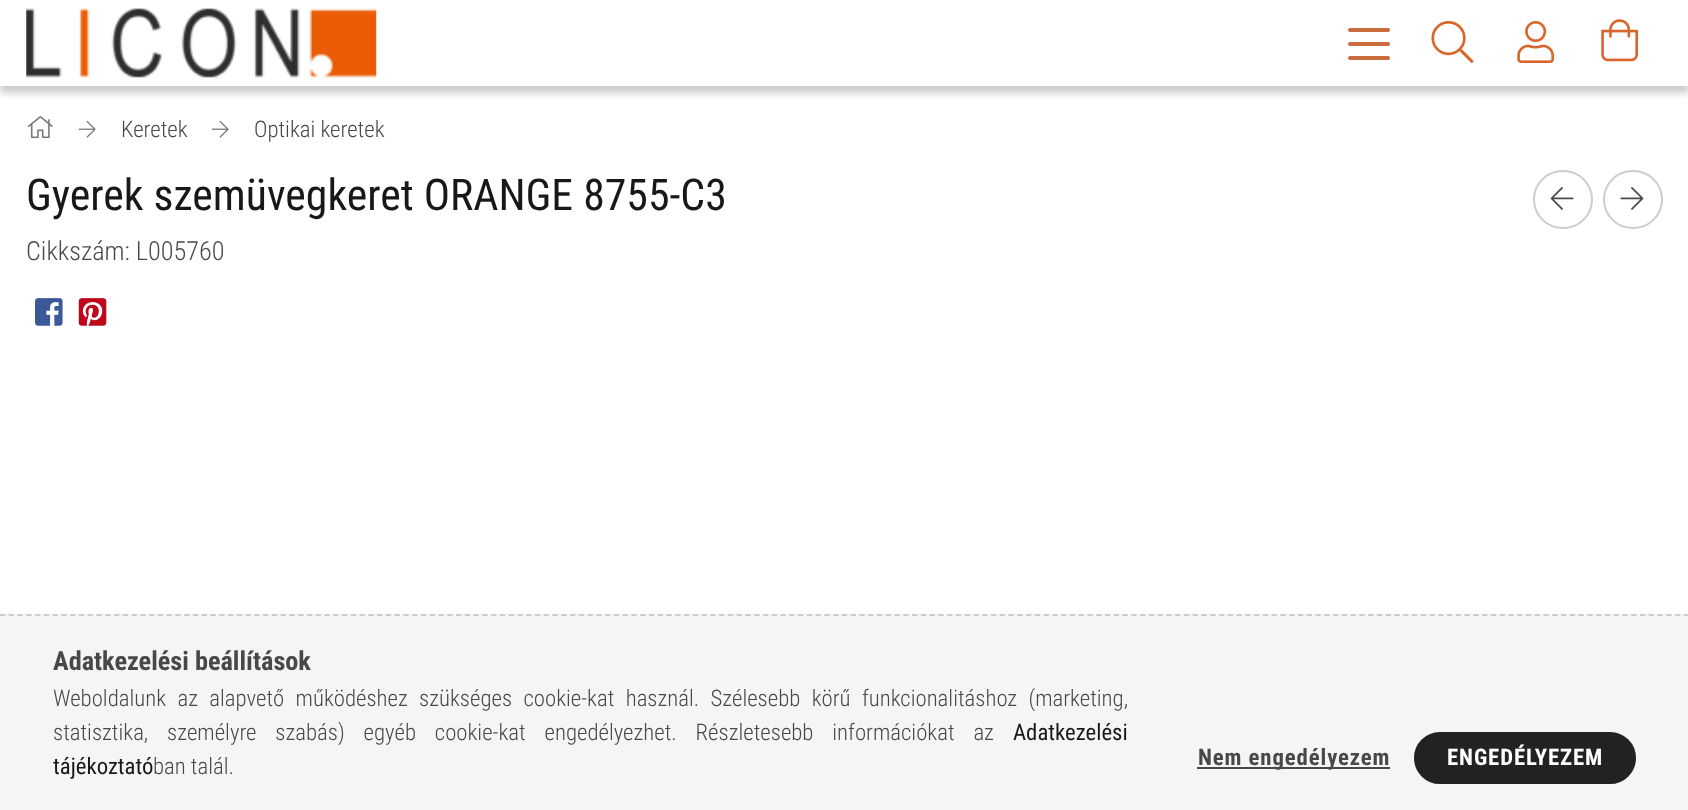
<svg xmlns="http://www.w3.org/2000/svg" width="1688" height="810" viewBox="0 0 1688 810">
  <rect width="100%" height="100%" fill="#fff"/>
  <path d="M0 7h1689v86H0z" fill="#00000033" filter="blur(3.5px)"/>
  <path d="M0 1h1688v85H0z" fill="#fff"/>
  <image x="26" y="8" width="351" height="70" href="img/1.png"/>
  <rect x="1348" y="28" width="42" height="4" rx="2" fill="#ca6c3b"/>
  <rect x="1348" y="42" width="42" height="4" rx="2" fill="#ca6c3b"/>
  <rect x="1348" y="56" width="42" height="4" rx="2" fill="#ca6c3b"/>
  <image x="1431" y="21" width="43" height="42" href="img/2.png"/>
  <image x="1517" y="21" width="37" height="42" href="img/3.png"/>
  <image x="1601" y="19" width="37" height="43" href="img/4.png"/>
  <image x="27" y="116" width="26" height="23" href="img/5.png"/>
  <image x="78" y="120" width="18" height="18" href="img/6.png"/>
  <image x="211" y="120" width="18" height="18" href="img/6.png"/>
  <rect x="1534" y="171" width="58" height="57" rx="28.5" fill="none" stroke="#ccc" stroke-width="2"/>
  <image x="1550" y="187" width="24" height="23" href="img/7.png"/>
  <rect x="1604" y="171" width="58" height="57" rx="28.5" fill="none" stroke="#ccc" stroke-width="2"/>
  <image x="1620" y="187" width="24" height="23" href="img/8.png"/>
  <image x="35" y="298" width="28" height="28" href="img/9.png"/>
  <image x="78" y="298" width="29" height="28" href="img/10.png"/>
  <path d="M0 614h1688v196H0z" fill="#f5f5f5"/>
  <path d="M0 615H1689" fill="none" stroke="#ccc" stroke-width="1.8" stroke-dasharray="5.25 3.52"/>
  <path d="M1197 767h193v2H1197z" fill="#484848"/>
  <rect x="1415" y="733" width="220" height="50" rx="25" fill="#222" stroke="#222" stroke-width="2"/>
  <g font-family="Roboto Condensed" font-size="22.75" font-weight="300" fill="#484848">
    <text x="121" y="137">Keretek</text>
    <text x="254" y="137">Optikai keretek</text>
  </g>
  <text x="26" y="210" font-family="Roboto Condensed" font-size="43.75" fill="#181818">Gyerek szemüvegkeret ORANGE 8755-C3</text>
  <text x="26" y="260" font-family="Roboto Condensed" font-size="26.25" font-weight="300" fill="#484848">Cikkszám: L005760</text>
  <text x="53" y="670" font-family="Roboto Condensed" font-size="26.25" font-weight="bold" fill="#484848">Adatkezelési beállítások</text>
  <g font-family="Roboto Condensed" font-size="22.75" font-weight="300" fill="#484848">
    <text x="53" y="706" word-spacing="6.25">Weboldalunk az alapvető működéshez szükséges cookie-kat használ. Szélesebb körű funkcionalitáshoz (marketing,</text>
    <text x="53" y="740" word-spacing="13.75">statisztika, személyre szabás) egyéb cookie-kat engedélyezhet. Részletesebb információkat az</text>
  </g>
  <g font-family="Roboto Condensed" font-size="22.75" fill="#181818">
    <text x="1013" y="740">Adatkezelési</text>
    <text x="53" y="774">tájékoztató</text>
  </g>
  <text x="153" y="774" font-family="Roboto Condensed" font-size="22.75" font-weight="300" fill="#484848">ban talál.</text>
  <text x="1198" y="765" font-family="Roboto Condensed" font-size="22.75" font-weight="bold" letter-spacing="0.9" fill="#484848">Nem engedélyezem</text>
  <text x="1447" y="765" font-family="Roboto Condensed" font-size="22.75" font-weight="bold" letter-spacing="0.9" fill="#fff">ENGEDÉLYEZEM</text>
</svg>
